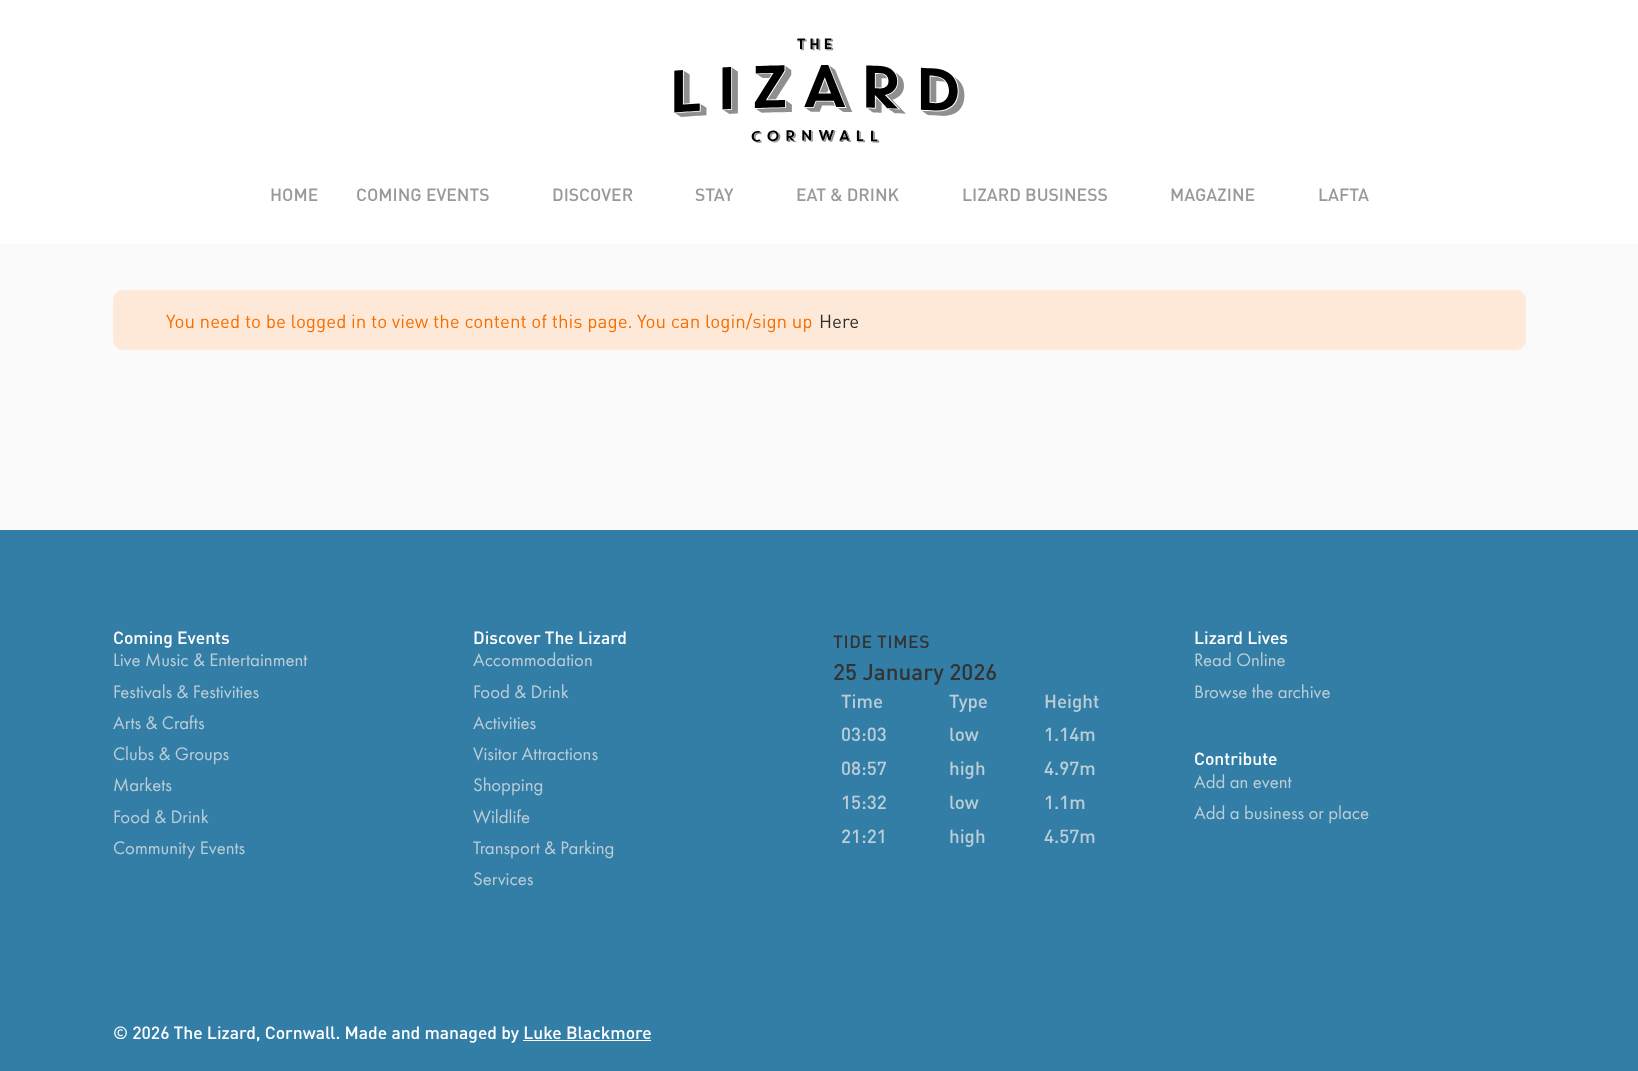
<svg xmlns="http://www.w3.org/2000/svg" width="1638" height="1071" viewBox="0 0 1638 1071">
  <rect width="100%" height="100%" fill="#fafafa"/>
  <path d="M0 0h1638v244H0z" fill="#fff"/>
  <image x="674" y="38" width="291" height="105" href="img/1.png"/>
  <rect x="113" y="290" width="1413" height="60" rx="10" fill="#fee9d9"/>
  <path d="M0 530h1638v541H0z" fill="#337ea6"/>
  <path d="M523 1040h128v1H523z" fill="#fff"/>
  <g font-family="DIN" font-size="17.5" font-weight="500" fill="#999">
    <text x="270" y="201">HOME</text>
    <text x="356" y="201">COMING EVENTS</text>
    <text x="552" y="201">DISCOVER</text>
    <text x="695" y="201">STAY</text>
    <text x="796" y="201">EAT &amp; DRINK</text>
    <text x="962" y="201">LIZARD BUSINESS</text>
    <text x="1170" y="201">MAGAZINE</text>
    <text x="1318" y="201">LAFTA</text>
  </g>
  <text x="166" y="328" font-family="DIN" font-size="18.75" fill="#f56e00">You need to be logged in to view the content of this page. You can login/sign up</text>
  <text x="819" y="328" font-family="DIN" font-size="18.75" fill="#2d2d2d">Here</text>
  <text x="113" y="644" font-family="DIN" font-size="17.5" font-weight="500" fill="#fff">Coming Events</text>
  <g font-family="Futura PT" font-size="18.75" fill="#bbcdd7">
    <text x="113" y="666">Live Music &amp; Entertainment</text>
    <text x="113" y="698">Festivals &amp; Festivities</text>
    <text x="113" y="729">Arts &amp; Crafts</text>
    <text x="113" y="760">Clubs &amp; Groups</text>
    <text x="113" y="791">Markets</text>
    <text x="113" y="823">Food &amp; Drink</text>
    <text x="113" y="854">Community Events</text>
  </g>
  <text x="473" y="644" font-family="DIN" font-size="17.5" font-weight="500" fill="#fff">Discover The Lizard</text>
  <g font-family="Futura PT" font-size="18.75" fill="#bbcdd7">
    <text x="473" y="666">Accommodation</text>
    <text x="473" y="698">Food &amp; Drink</text>
    <text x="473" y="729">Activities</text>
    <text x="473" y="760">Visitor Attractions</text>
    <text x="473" y="791">Shopping</text>
    <text x="473" y="823">Wildlife</text>
    <text x="473" y="854">Transport &amp; Parking</text>
    <text x="473" y="885">Services</text>
  </g>
  <text x="833" y="648" font-family="DIN" font-size="17.5" font-weight="500" letter-spacing="0.6" fill="#333">TIDE TIMES</text>
  <text x="833" y="680" font-family="DIN" font-size="22.5" font-weight="500" fill="#333">25 January 2026</text>
  <g font-family="DIN" font-size="18.75" font-weight="500" fill="#bbcdd7">
    <text x="841" y="708">Time</text>
    <text x="949" y="708">Type</text>
    <text x="1044" y="708">Height</text>
    <text x="841" y="741">03:03</text>
    <text x="949" y="741">low</text>
    <text x="1044" y="741">1.14m</text>
    <text x="841" y="775">08:57</text>
    <text x="949" y="775">high</text>
    <text x="1044" y="775">4.97m</text>
    <text x="841" y="809">15:32</text>
    <text x="949" y="809">low</text>
    <text x="1044" y="809">1.1m</text>
    <text x="841" y="843">21:21</text>
    <text x="949" y="843">high</text>
    <text x="1044" y="843">4.57m</text>
  </g>
  <text x="1194" y="644" font-family="DIN" font-size="17.5" font-weight="500" fill="#fff">Lizard Lives</text>
  <g font-family="Futura PT" font-size="18.75" fill="#bbcdd7">
    <text x="1194" y="666">Read Online</text>
    <text x="1194" y="698">Browse the archive</text>
  </g>
  <text x="1194" y="765" font-family="DIN" font-size="17.5" font-weight="500" fill="#fff">Contribute</text>
  <g font-family="Futura PT" font-size="18.75" fill="#bbcdd7">
    <text x="1194" y="788">Add an event</text>
    <text x="1194" y="819">Add a business or place</text>
  </g>
  <text x="113" y="1039" font-family="DIN" font-size="17.5" font-weight="500" fill="#fff">© 2026 The Lizard, Cornwall. Made and managed by Luke Blackmore</text>
</svg>
